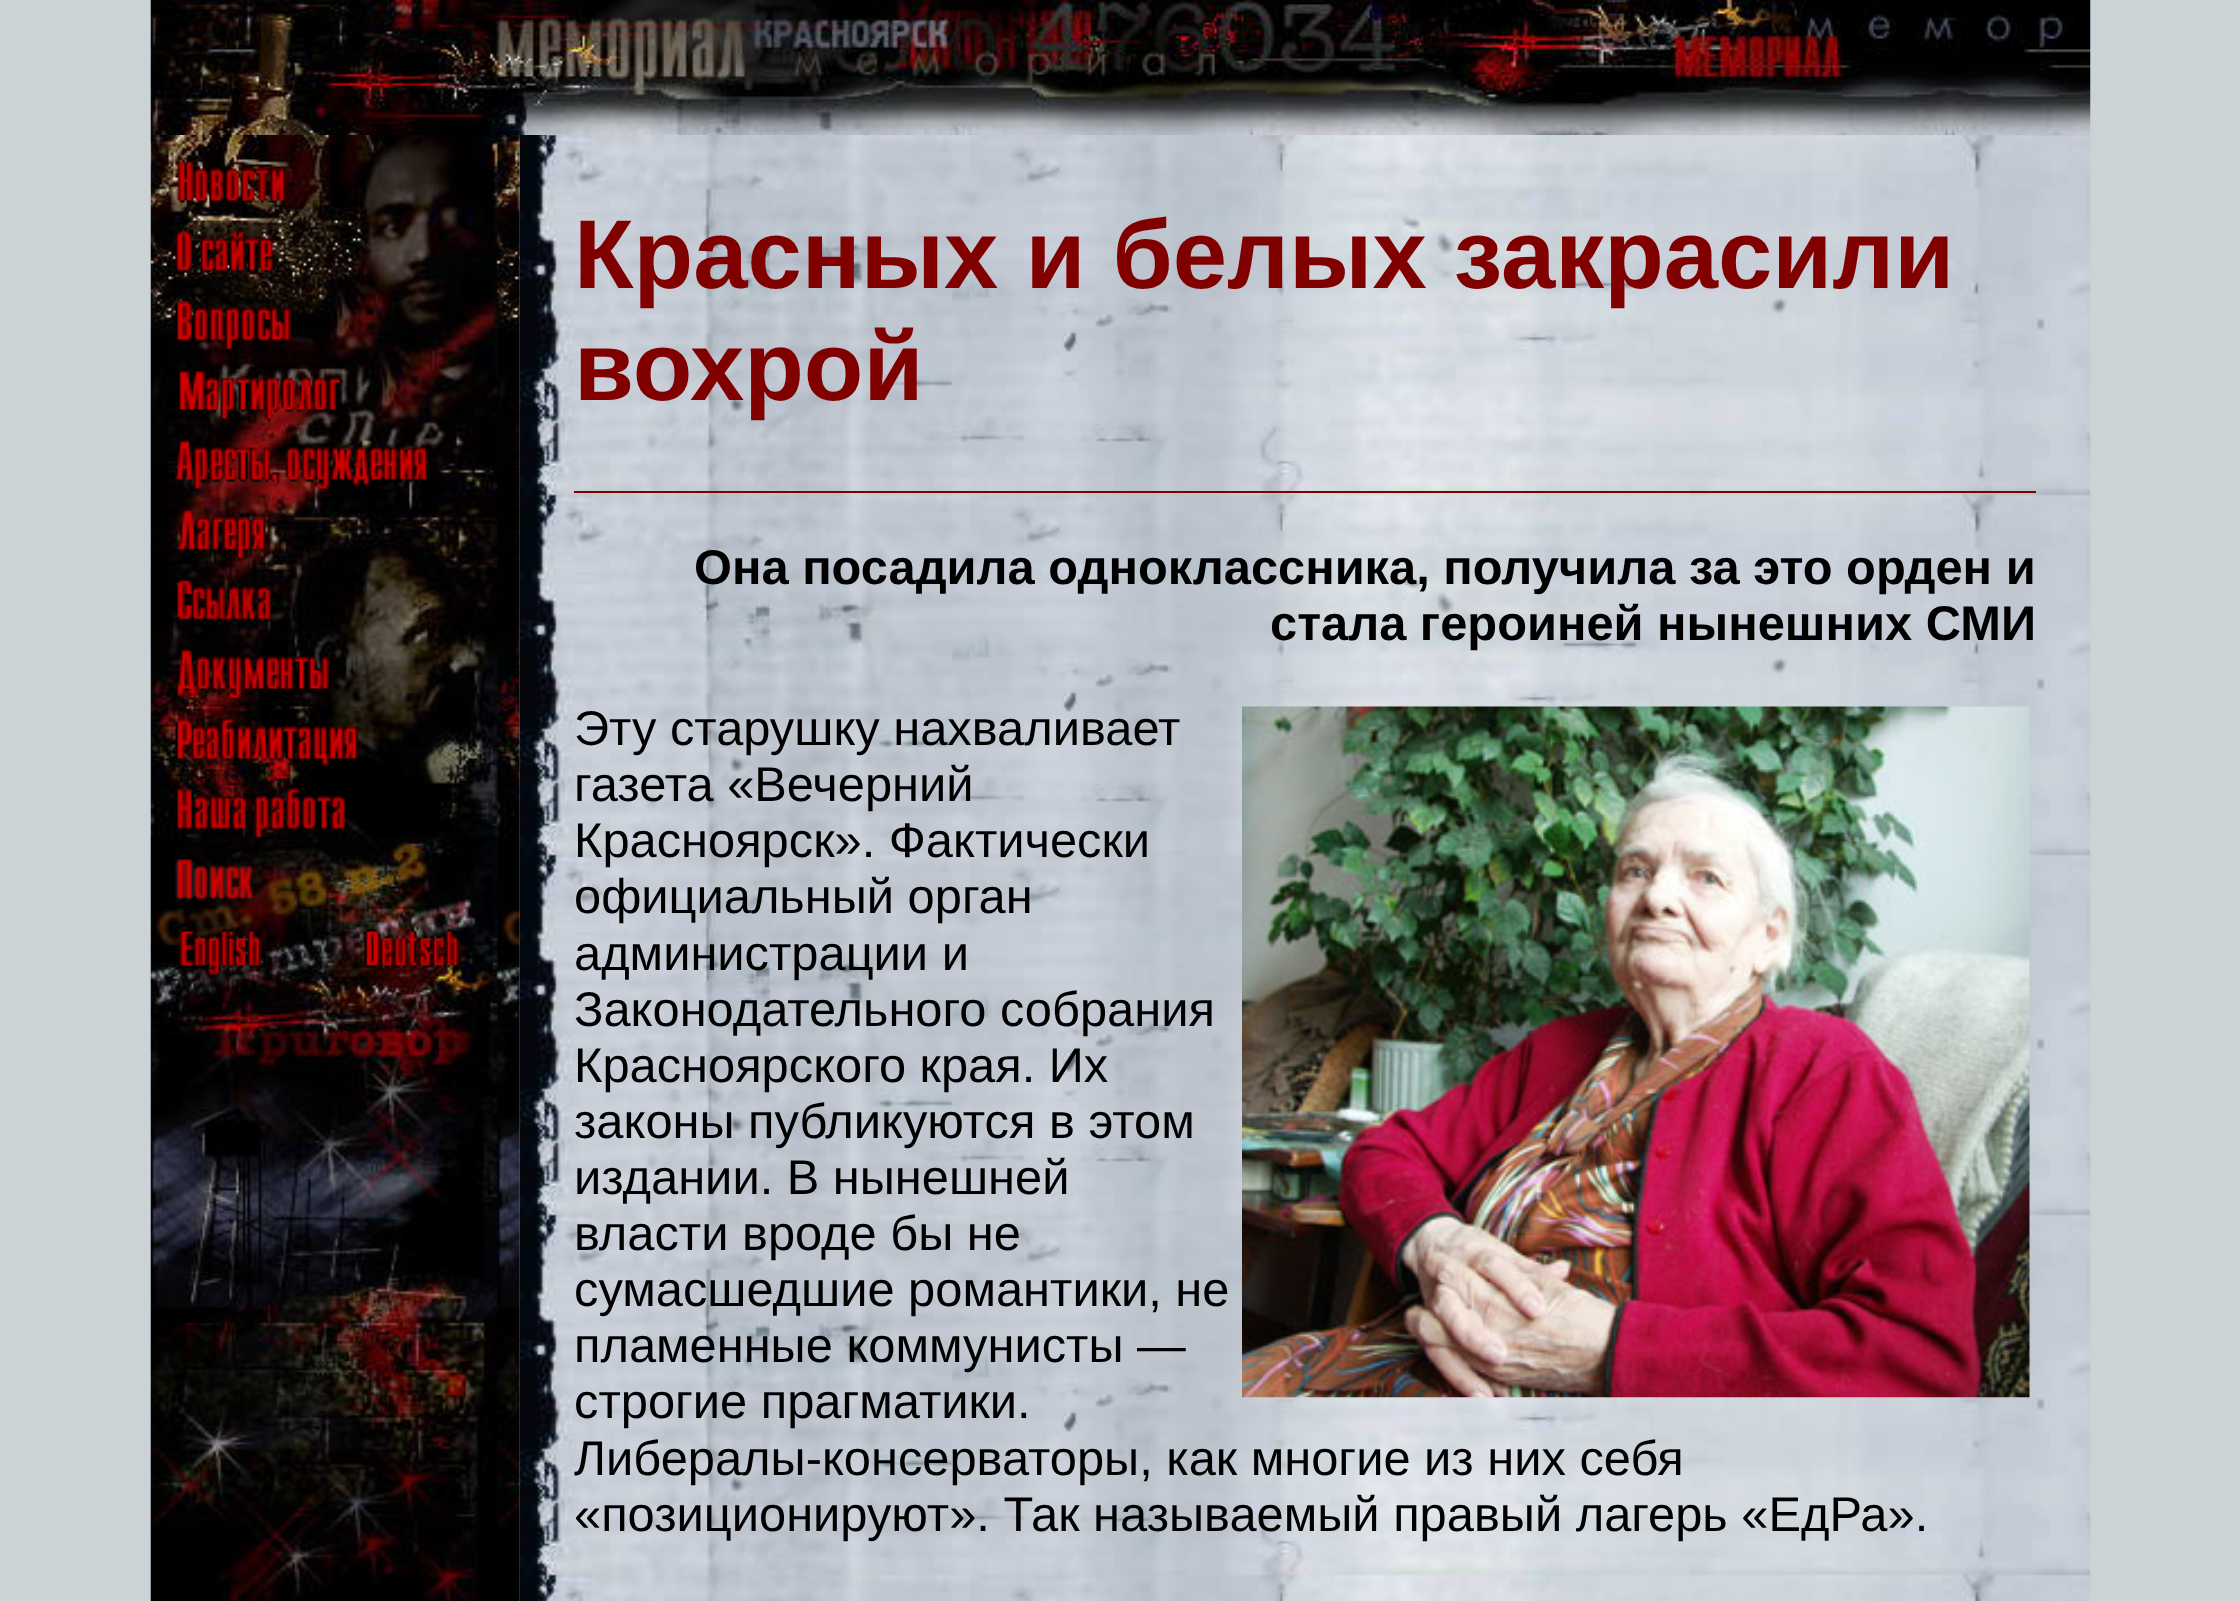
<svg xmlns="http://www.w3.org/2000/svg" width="2240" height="1601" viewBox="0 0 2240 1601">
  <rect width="100%" height="100%" fill="#cbd3d6"/>
  <image x="150" y="0" width="1941" height="135" href="img/1.png"/>
  <image x="150" y="135" width="370" height="1466" href="img/2.png"/>
  <image x="177" y="161" width="110" height="43" href="img/3.png"/>
  <image x="175" y="231" width="98" height="42" href="img/4.png"/>
  <image x="175" y="301" width="116" height="50" href="img/5.png"/>
  <image x="179" y="370" width="164" height="51" href="img/6.png"/>
  <image x="175" y="440" width="253" height="51" href="img/7.png"/>
  <image x="177" y="510" width="90" height="51" href="img/8.png"/>
  <image x="175" y="580" width="96" height="42" href="img/9.png"/>
  <image x="175" y="649" width="155" height="51" href="img/10.png"/>
  <image x="175" y="717" width="184" height="49" href="img/11.png"/>
  <image x="175" y="787" width="170" height="51" href="img/12.png"/>
  <image x="175" y="859" width="80" height="42" href="img/13.png"/>
  <image x="179" y="928" width="83" height="47" href="img/14.png"/>
  <image x="364" y="928" width="96" height="41" href="img/15.png"/>
  <image x="519" y="135" width="1572" height="1466" href="img/16.png"/>
  <path d="M574 491h1462v2H574z" fill="#800000"/>
  <image x="1242" y="706" width="788" height="692" href="img/17.png"/>
  <g font-family="Liberation Sans" font-size="97.6" font-weight="bold" fill="#800000">
    <text x="574" y="288">Красных и белых закрасили</text>
    <text x="574" y="400">вохрой</text>
  </g>
  <g font-family="Liberation Sans" font-size="48.8" font-weight="bold" fill="#000">
    <text x="694" y="584">Она посадила одноклассника, получила за это орден и</text>
    <text x="1270" y="640">стала героиней нынешних СМИ</text>
  </g>
  <g font-family="Liberation Sans" font-size="48.8" fill="#000">
    <text x="574" y="745">Эту старушку нахваливает</text>
    <text x="574" y="801">газета «Вечерний</text>
    <text x="574" y="857">Красноярск». Фактически</text>
    <text x="574" y="913">официальный орган</text>
    <text x="574" y="970">администрации и</text>
    <text x="574" y="1026">Законодательного собрания</text>
    <text x="574" y="1082">Красноярского края. Их</text>
    <text x="574" y="1138">законы публикуются в этом</text>
    <text x="574" y="1194">издании. В нынешней</text>
    <text x="574" y="1250">власти вроде бы не</text>
    <text x="574" y="1306">сумасшедшие романтики, не</text>
    <text x="574" y="1362">пламенные коммунисты —</text>
    <text x="574" y="1418">строгие прагматики.</text>
    <text x="574" y="1475">Либералы-консерваторы, как многие из них себя</text>
    <text x="574" y="1531">«позиционируют». Так называемый правый лагерь «ЕдРа».</text>
  </g>
</svg>
